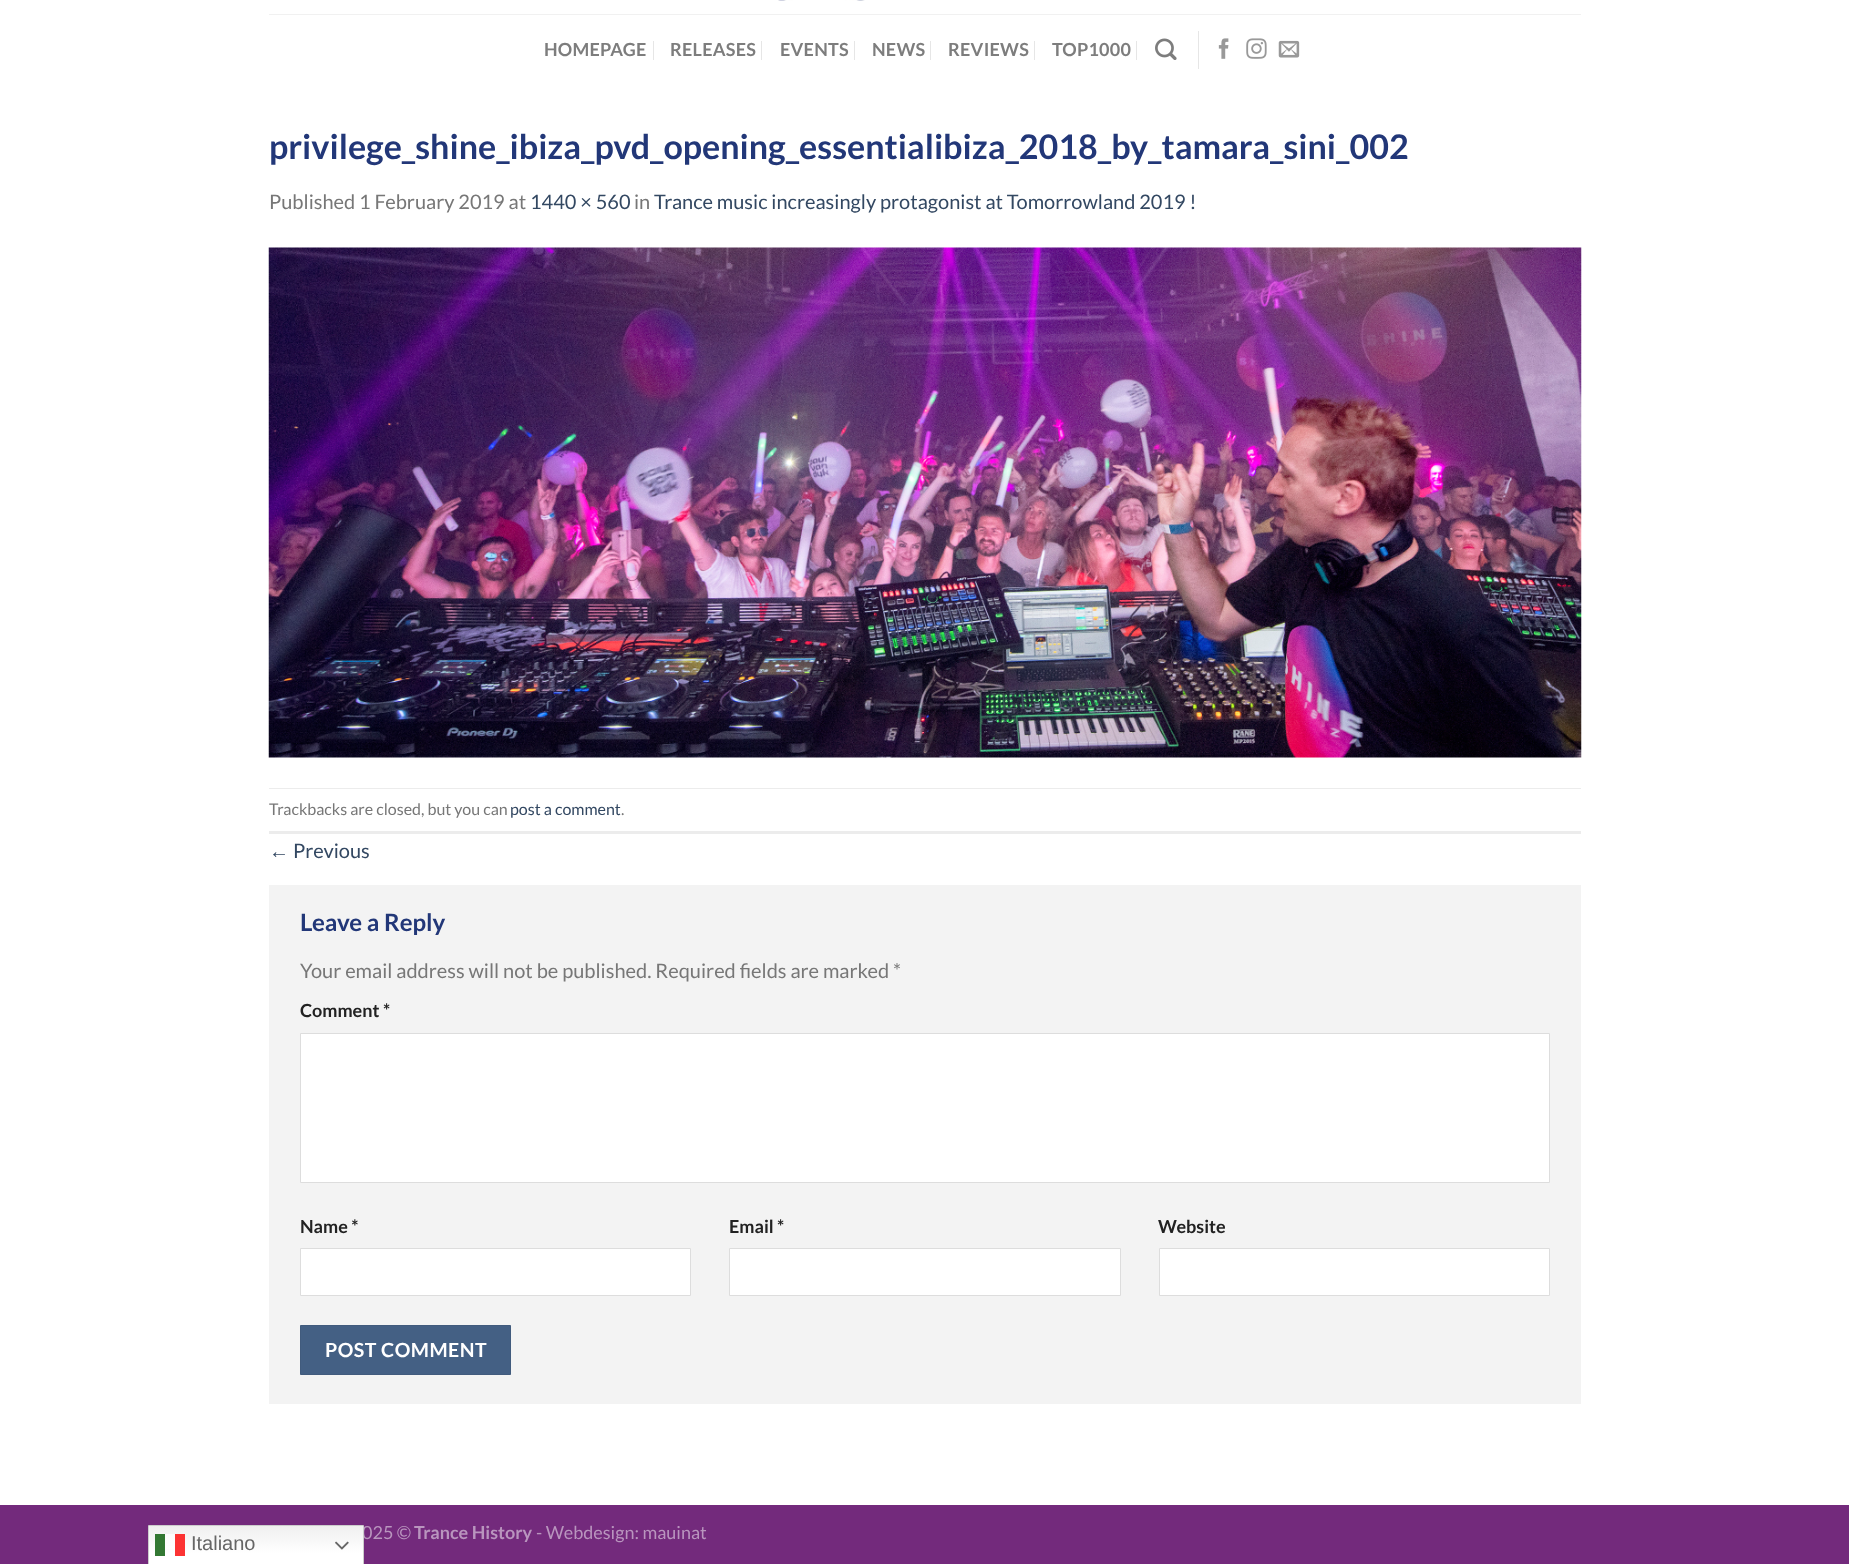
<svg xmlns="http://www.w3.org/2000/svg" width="1849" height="1564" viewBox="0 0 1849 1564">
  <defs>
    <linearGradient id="g1" gradientUnits="userSpaceOnUse" x1="256" y1="1525" x2="256" y2="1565"><stop offset="0" stop-color="#efefef"/><stop offset="0.7" stop-color="#fff"/></linearGradient>
    <linearGradient id="g2" gradientUnits="userSpaceOnUse" x1="256" y1="1525" x2="256" y2="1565"><stop offset="0" stop-color="#fcfcfc"/><stop offset="0.7" stop-color="#fff"/></linearGradient>
  </defs>
  <rect width="100%" height="100%" fill="#fff"/>
  <image x="778" y="0" width="87" height="1" href="img/2.png"/>
  <path d="M269 14h1312v1H269z" fill="#f1f1f1"/>
  <path d="M653 41h1v19H653z" fill="#e6e6e6"/>
  <path d="M761 41h1v19H761z" fill="#e6e6e6"/>
  <path d="M854 41h1v19H854z" fill="#e6e6e6"/>
  <path d="M930 41h1v19H930z" fill="#e6e6e6"/>
  <path d="M1034 41h1v19H1034z" fill="#e6e6e6"/>
  <path d="M1136 41h1v19H1136z" fill="#e6e6e6"/>
  <image x="1155" y="38" width="22" height="22" href="img/3.png"/>
  <path d="M1198 31h1v38H1198z" fill="#e6e6e6"/>
  <image x="1218" y="38" width="11" height="21" href="img/4.png"/>
  <image x="1246" y="38" width="21" height="21" href="img/5.png"/>
  <image x="1278" y="40" width="22" height="18" href="img/6.png"/>
  <image x="268" y="247" width="1314" height="511" href="img/7.png"/>
  <path d="M269 788h1312v1H269z" fill="#ececec"/>
  <path d="M269 831h1312v3H269z" fill="#ececec"/>
  <path d="M269 885h1312v519H269z" fill="#f3f3f3"/>
  <path d="M300.5 1033.5h1249v149H300.5z" fill="#fff" stroke="#ddd"/>
  <path d="M300.5 1248.5h390v47H300.5z" fill="#fff" stroke="#ddd"/>
  <path d="M729.5 1248.5h391v47H729.5z" fill="#fff" stroke="#ddd"/>
  <path d="M1159.5 1248.5h390v47H1159.5z" fill="#fff" stroke="#ddd"/>
  <path d="M300.5 1325.5h210v49H300.5z" fill="#446084" stroke="#415b7d"/>
  <path d="M0 1505h1849v59H0z" fill="#732a7c"/>
  <g font-family="Lato" font-size="18" font-weight="bold" letter-spacing="0.25" fill="#7d7d7d">
    <text x="544" y="56">HOMEPAGE</text>
    <text x="670" y="56">RELEASES</text>
    <text x="780" y="56">EVENTS</text>
    <text x="872" y="56">NEWS</text>
    <text x="948" y="56">REVIEWS</text>
    <text x="1052" y="56">TOP1000</text>
  </g>
  <text x="269" y="159" font-family="Lato" font-size="34" font-weight="bold" fill="#223778">privilege_shine_ibiza_pvd_opening_essentialibiza_2018_by_tamara_sini_002</text>
  <text x="269" y="209" font-family="Lato" font-size="20" fill="#777">Published 1 February 2019 at</text>
  <text x="530" y="209" font-family="Lato" font-size="20" fill="#334862">1440 × 560</text>
  <text x="634" y="209" font-family="Lato" font-size="20" fill="#777">in</text>
  <text x="654" y="209" font-family="Lato" font-size="20" fill="#334862">Trance music increasingly protagonist at Tomorrowland 2019 !</text>
  <text x="269" y="815" font-family="Lato" font-size="16" fill="#777">Trackbacks are closed, but you can</text>
  <text x="510" y="815" font-family="Lato" font-size="16" fill="#334862">post a comment</text>
  <text x="621" y="815" font-family="Lato" font-size="16" fill="#777">.</text>
  <text x="269" y="858" font-family="Liberation Sans" font-size="20" fill="#334862">←</text>
  <text x="293" y="858" font-family="Lato" font-size="20" fill="#334862">Previous</text>
  <text x="300" y="931" font-family="Lato" font-size="24" font-weight="bold" fill="#223778">Leave a Reply</text>
  <text x="300" y="978" font-family="Lato" font-size="20" fill="#777">Your email address will not be published. Required fields are marked *</text>
  <g font-family="Lato" font-size="18" font-weight="bold" fill="#222">
    <text x="300" y="1017">Comment *</text>
    <text x="300" y="1233">Name *</text>
    <text x="729" y="1233">Email *</text>
    <text x="1158" y="1233">Website</text>
  </g>
  <text x="325" y="1357" font-family="Lato" font-size="19.5" font-weight="bold" letter-spacing="0.5" fill="#fff">POST COMMENT</text>
  <text x="362" y="1539" font-family="Lato" font-size="18" fill="#b995be">025 ©</text>
  <path d="M149 1526h214v38H149z" fill="url(#g1)"/>
  <path d="M165 1534h10v15H165z" fill="url(#g2)"/>
  <path d="M148.5 1525.5h215v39H148.5z" fill="none" stroke="#ccc"/>
  <image x="335" y="1541" width="14" height="9" href="img/1.png"/>
  <path d="M175 1534h10v22H175z" fill="#fc3333"/>
  <path d="M155 1534h10v22H155z" fill="#337833"/>
  <text x="191" y="1550" font-family="Liberation Sans" font-size="20" fill="#666">Italiano</text>
  <text x="414" y="1539" font-family="Lato" font-size="18" font-weight="bold" fill="#b995be">Trance History</text>
  <text x="536" y="1539" font-family="Lato" font-size="18" fill="#b995be">- Webdesign: mauinat</text>
</svg>
